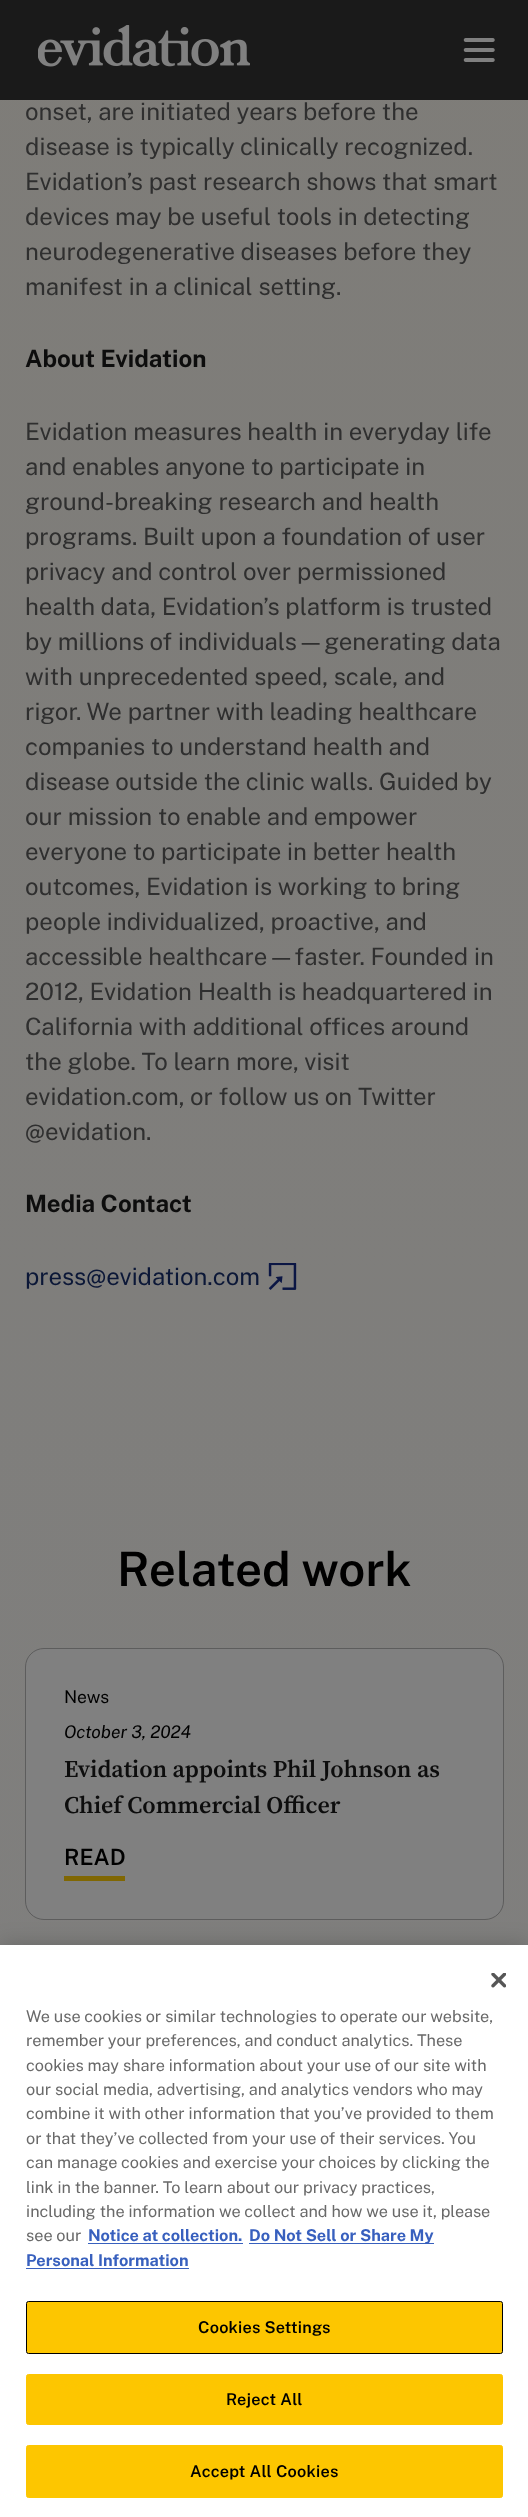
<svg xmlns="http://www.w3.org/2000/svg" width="528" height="2517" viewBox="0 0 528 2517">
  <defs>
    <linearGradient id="g1" gradientUnits="userSpaceOnUse" x1="264" y1="-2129" x2="264" y2="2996"><stop offset="0" stop-color="#7d7a73"/><stop offset="1" stop-color="#808080"/></linearGradient>
  </defs>
  <rect width="100%" height="100%" fill="#fff"/>
  <path d="M0 0h528v100H0z" fill="#1a1a1a"/>
  <image x="38" y="25" width="212" height="42" href="img/1.png"/>
  <image x="463" y="38" width="32" height="24" href="img/2.png"/>
  <path d="M0 100h528v1845H0z" fill="url(#g1)"/>
  <image x="268" y="1263" width="29" height="27" href="img/3.png"/>
  <rect x="25.5" y="1648.5" width="478" height="271" rx="18.5" fill="#808080" stroke="#5d5d5d"/>
  <path d="M64 1876h61v5H64z" fill="#806703"/>
  <path d="M0 1945h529v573H0z" fill="#00000033" filter="blur(11px)"/>
  <path d="M0 1945h528v572H0z" fill="#fff"/>
  <image x="491" y="1973" width="15" height="15" href="img/4.png"/>
  <path d="M88 2243h155v1H88z" fill="#3860be"/>
  <path d="M249 2243h185v1H249z" fill="#3860be"/>
  <path d="M26 2268h163v1H26z" fill="#3860be"/>
  <rect x="26.5" y="2301.5" width="476" height="52" rx="2" fill="#fdc600" stroke="#000"/>
  <rect x="26.5" y="2374.5" width="476" height="50" rx="2" fill="#fdc600" stroke="#fdc600"/>
  <rect x="26.5" y="2445.5" width="476" height="52" rx="2" fill="#fdc600" stroke="#fdc600"/>
  <g font-family="Public Sans" font-size="24" fill="#2f2f2f">
    <text x="25" y="120">onset, are initiated years before the</text>
    <text x="25" y="155">disease is typically clinically recognized.</text>
    <text x="25" y="190">Evidation’s past research shows that smart</text>
    <text x="25" y="225">devices may be useful tools in detecting</text>
    <text x="25" y="260">neurodegenerative diseases before they</text>
    <text x="25" y="295">manifest in a clinical setting.</text>
  </g>
  <text x="25" y="367" font-family="Public Sans" font-size="24" font-weight="bold" fill="#0d0d0d">About Evidation</text>
  <g font-family="Public Sans" font-size="24" fill="#2f2f2f">
    <text x="25" y="440">Evidation measures health in everyday life</text>
    <text x="25" y="475">and enables anyone to participate in</text>
    <text x="25" y="510">ground-breaking research and health</text>
    <text x="25" y="545">programs. Built upon a foundation of user</text>
    <text x="25" y="580">privacy and control over permissioned</text>
    <text x="25" y="615">health data, Evidation’s platform is trusted</text>
    <text x="25" y="650">by millions of individuals—generating data</text>
    <text x="25" y="685">with unprecedented speed, scale, and</text>
    <text x="25" y="720">rigor. We partner with leading healthcare</text>
    <text x="25" y="755">companies to understand health and</text>
    <text x="25" y="790">disease outside the clinic walls. Guided by</text>
    <text x="25" y="825">our mission to enable and empower</text>
    <text x="25" y="860">everyone to participate in better health</text>
    <text x="25" y="895">outcomes, Evidation is working to bring</text>
    <text x="25" y="930">people individualized, proactive, and</text>
    <text x="25" y="965">accessible healthcare—faster. Founded in</text>
    <text x="25" y="1000">2012, Evidation Health is headquartered in</text>
    <text x="25" y="1035">California with additional offices around</text>
    <text x="25" y="1070">the globe. To learn more, visit</text>
    <text x="25" y="1105">evidation.com, or follow us on Twitter</text>
    <text x="25" y="1140">@evidation.</text>
  </g>
  <text x="25" y="1212" font-family="Public Sans" font-size="24" font-weight="bold" fill="#0d0d0d">Media Contact</text>
  <text x="25" y="1285" font-family="Public Sans" font-size="24" fill="#0b1737">press@evidation.com</text>
  <text x="117" y="1586" font-family="Public Sans" font-size="47.5" font-weight="600" fill="#000">Related work</text>
  <text x="64" y="1703" font-family="Public Sans" font-size="17.5" fill="#000">News</text>
  <text x="64" y="1738" font-family="Public Sans" font-size="17.5" font-style="italic" fill="#000">October 3, 2024</text>
  <g font-family="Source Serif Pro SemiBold" font-size="24" font-weight="600" fill="#0d0d0d">
    <text x="64" y="1777">Evidation appoints Phil Johnson as</text>
    <text x="64" y="1813">Chief Commercial Officer</text>
  </g>
  <text x="64" y="1865" font-family="Public Sans" font-size="22.5" font-weight="600" fill="#000">READ</text>
  <g font-family="Public Sans" font-size="16.25" fill="#696969">
    <text x="26" y="2022">We use cookies or similar technologies to operate our website,</text>
    <text x="26" y="2046">remember your preferences, and conduct analytics. These</text>
    <text x="26" y="2071">cookies may share information about your use of our site with</text>
    <text x="26" y="2095">our social media, advertising, and analytics vendors who may</text>
    <text x="26" y="2119">combine it with other information that you’ve provided to them</text>
    <text x="26" y="2144">or that they’ve collected from your use of their services. You</text>
    <text x="26" y="2168">can manage cookies and exercise your choices by clicking the</text>
    <text x="26" y="2193">link in the banner. To learn about our privacy practices,</text>
    <text x="26" y="2217">including the information we collect and how we use it, please</text>
    <text x="26" y="2241">see our</text>
  </g>
  <g font-family="Public Sans" font-size="16.25" font-weight="bold" fill="#3860be">
    <text x="88" y="2241">Notice at collection.</text>
    <text x="249" y="2241">Do Not Sell or Share My</text>
    <text x="26" y="2266">Personal Information</text>
  </g>
  <g font-family="Public Sans" font-size="16.25" font-weight="600" letter-spacing="0.2" fill="#000">
    <text x="198" y="2333">Cookies Settings</text>
    <text x="226" y="2405">Reject All</text>
    <text x="190" y="2477">Accept All Cookies</text>
  </g>
</svg>
